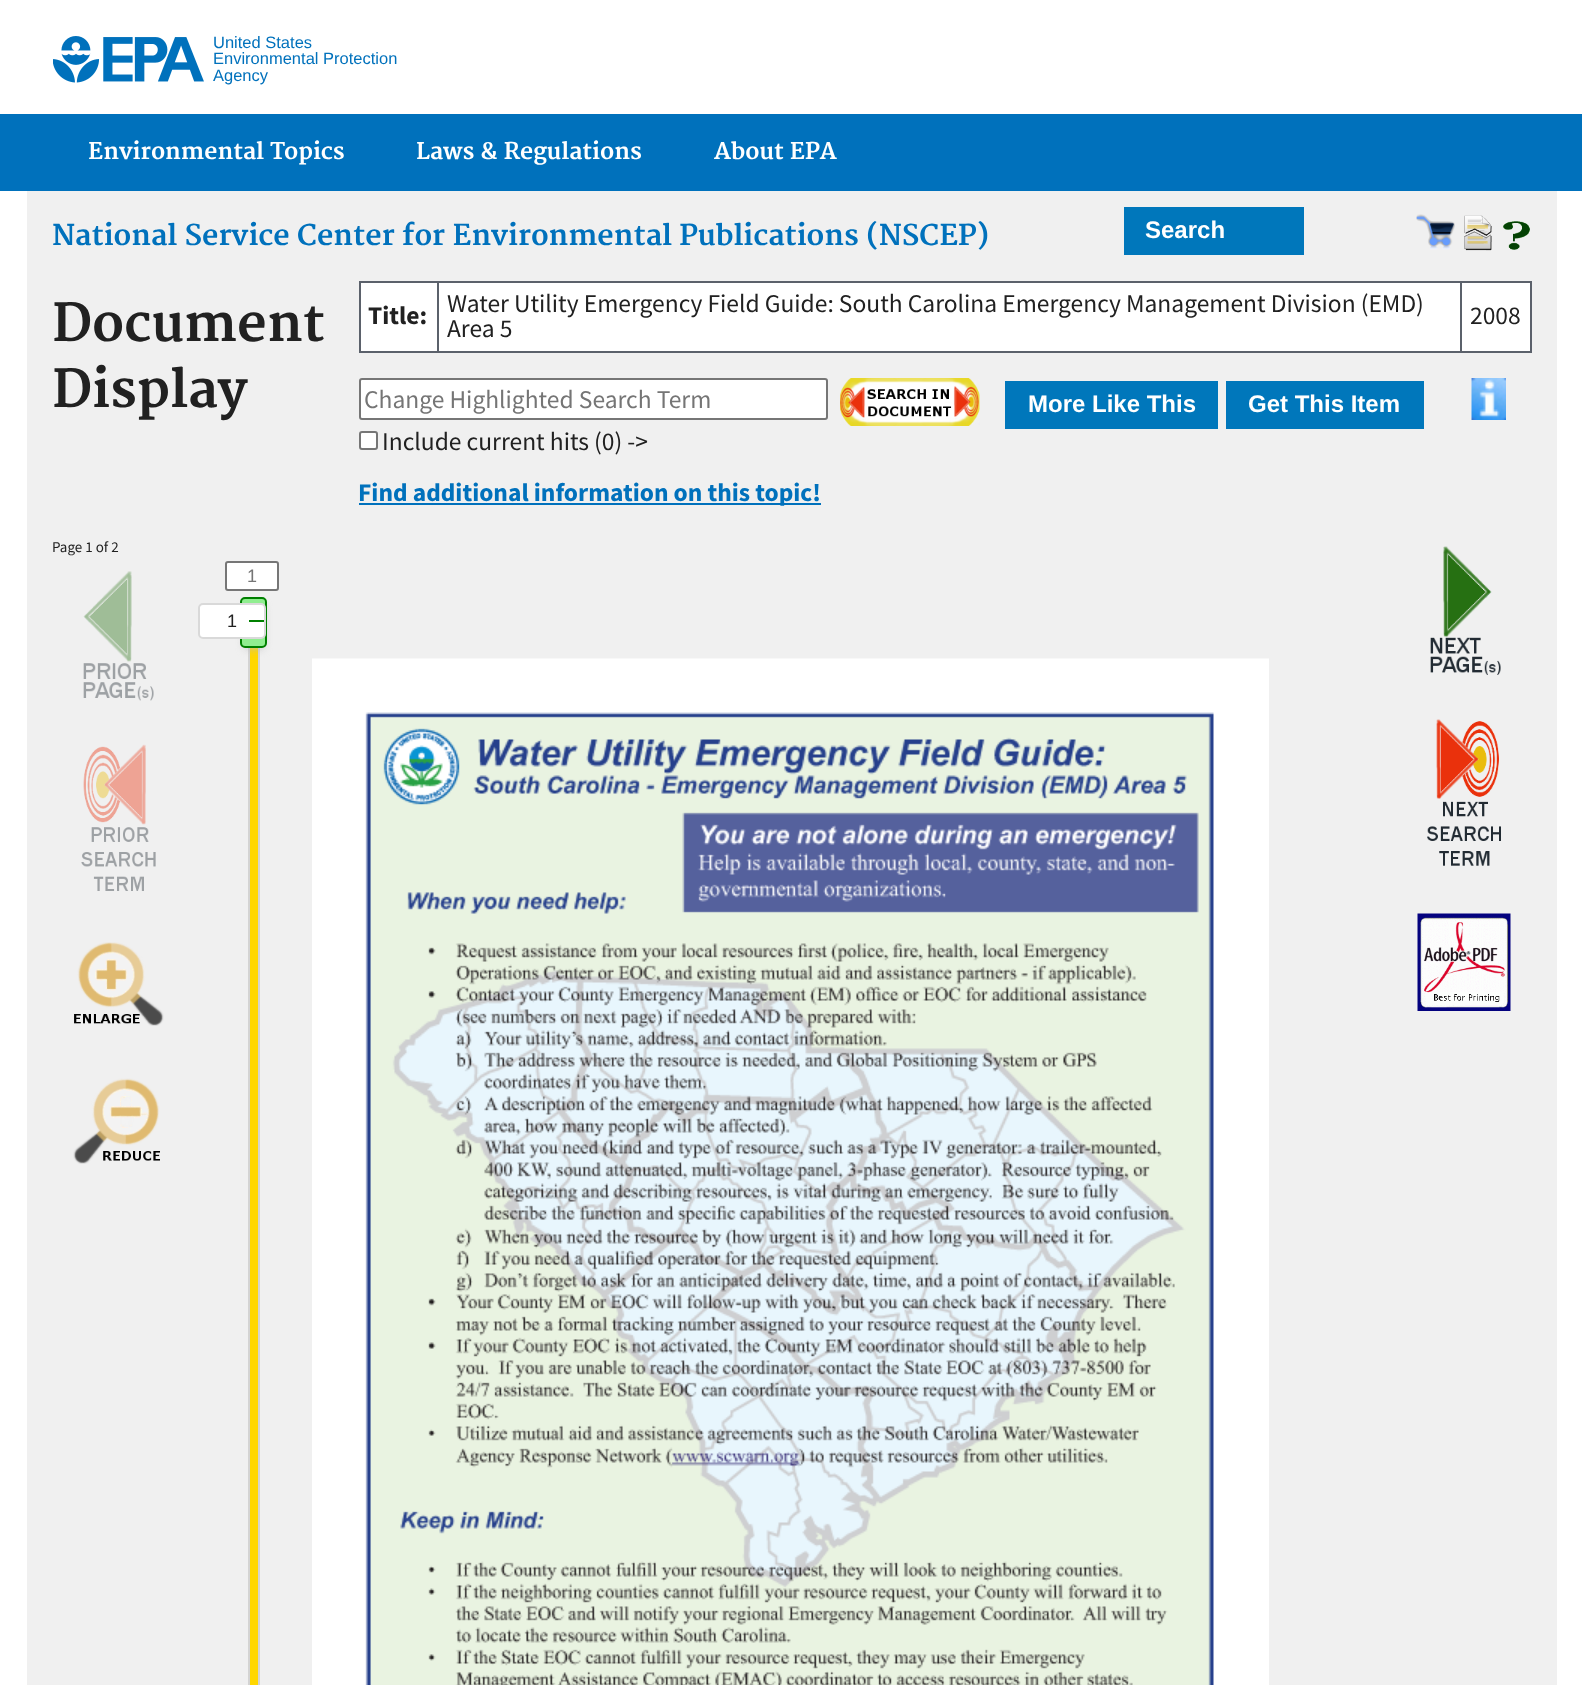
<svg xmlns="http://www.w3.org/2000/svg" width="1582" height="1685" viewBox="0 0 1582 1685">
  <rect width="100%" height="100%" fill="#fff"/>
  <image x="53" y="36" width="151" height="47" href="img/1.png"/>
  <path d="M0 114h1582v77H0z" fill="#0071bc"/>
  <path d="M27 191h1530v1494H27z" fill="#f0f0f0"/>
  <path d="M1124 207h180v48H1124z" fill="#07b"/>
  <image x="1416" y="214" width="39" height="36" href="img/2.png"/>
  <image x="1464" y="215" width="28" height="36" href="img/3.png"/>
  <image x="1503" y="221" width="27" height="29" href="img/4.png"/>
  <path d="M361 283h1169v68H361z" fill="#fff"/>
  <path d="M1460 281h72v2H1460z" fill="#5b616b"/>
  <path d="M1530 281h2v72H1530z" fill="#5b616b"/>
  <path d="M1460 351h72v2H1460z" fill="#5b616b"/>
  <path d="M1460 281h2v72H1460z" fill="#5b616b"/>
  <path d="M437 281h1024v2H437z" fill="#5b616b"/>
  <path d="M437 351h1024v2H437z" fill="#5b616b"/>
  <path d="M437 281h2v72H437z" fill="#5b616b"/>
  <path d="M359 281h79v2H359z" fill="#5b616b"/>
  <path d="M359 351h79v2H359z" fill="#5b616b"/>
  <path d="M359 281h2v72H359z" fill="#5b616b"/>
  <rect x="360" y="379" width="467" height="40" rx="2" fill="#fff" stroke="#767676" stroke-width="2"/>
  <image x="840" y="378" width="140" height="48" href="img/5.png"/>
  <path d="M1005 381h213v48H1005z" fill="#07b"/>
  <path d="M1226 381h198v48H1226z" fill="#07b"/>
  <image x="1471" y="378" width="35" height="42" href="img/6.png"/>
  <rect x="360" y="432" width="17" height="17" rx="2" fill="#fff" stroke="#767676" stroke-width="2"/>
  <path d="M359 503h462v2H359z" fill="#0071bc"/>
  <image x="83" y="571" width="71" height="130" href="img/7.png"/>
  <image x="81" y="744" width="75" height="147" href="img/8.png"/>
  <image x="74" y="942" width="90" height="84" href="img/9.png"/>
  <image x="73" y="1078" width="87" height="86" href="img/10.png"/>
  <rect x="226" y="562" width="52" height="28" rx="2" fill="#fff" stroke="#767676" stroke-width="2"/>
  <path d="M250 648h8v1037H250z" fill="#ffd700"/>
  <path d="M249 622h10v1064H249z" fill="none" stroke="#d3d3d3" stroke-width="2"/>
  <path d="M245 606h18v42H245z" fill="#bbb" filter="blur(4.5px)"/>
  <rect x="241" y="598" width="25" height="49" rx="4" fill="#90ee90" stroke="#008000" stroke-width="2"/>
  <rect x="199" y="604" width="66" height="34" rx="4" fill="#fff" stroke="#d9d9d9" stroke-width="2"/>
  <path d="M249 620h15v2H249z" fill="#008000"/>
  <image x="1430" y="546" width="71" height="129" href="img/11.png"/>
  <image x="1427" y="719" width="74" height="147" href="img/12.png"/>
  <image x="1417" y="913" width="94" height="98" href="img/13.png"/>
  <image x="312" y="658" width="957" height="1027" href="img/14.png"/>
  <g font-family="Liberation Sans" font-size="16.5" fill="#0071bc">
    <text x="213" y="48">United States</text>
    <text x="213" y="64">Environmental Protection</text>
    <text x="213" y="81">Agency</text>
  </g>
  <g font-family="Merriweather" font-size="22.5" font-weight="bold" fill="#fff">
    <text x="88" y="159">Environmental Topics</text>
    <text x="416" y="159">Laws &amp; Regulations</text>
    <text x="714" y="159">About EPA</text>
  </g>
  <text x="52" y="245" font-family="Merriweather" font-size="28.05" font-weight="bold" fill="#0071bc">National Service Center for Environmental Publications (NSCEP)</text>
  <text x="1145" y="238" font-family="Liberation Sans" font-size="24" font-weight="bold" fill="#fff">Search</text>
  <g font-family="Merriweather" font-size="51" font-weight="bold" fill="#212121">
    <text x="52" y="341">Document</text>
    <text x="52" y="407">Display</text>
  </g>
  <text x="368" y="324" font-family="Source Sans Pro" font-size="25.5" font-weight="bold" fill="#212121">Title:</text>
  <g font-family="Source Sans Pro" font-size="25.5" fill="#212121">
    <text x="447" y="312">Water Utility Emergency Field Guide: South Carolina Emergency Management Division (EMD)</text>
    <text x="447" y="337">Area 5</text>
    <text x="1470" y="324">2008</text>
  </g>
  <text x="364" y="408" font-family="Source Sans Pro" font-size="25.5" fill="#757575">Change Highlighted Search Term</text>
  <g font-family="Liberation Sans" font-size="24" font-weight="bold" fill="#fff">
    <text x="1028" y="412">More Like This</text>
    <text x="1248" y="412">Get This Item</text>
  </g>
  <text x="382" y="450" font-family="Source Sans Pro" font-size="25.5" fill="#212121">Include current hits (0) -&gt;</text>
  <text x="358" y="501" font-family="Source Sans Pro" font-size="25.5" font-weight="bold" fill="#0071bc">Find additional information on this topic!</text>
  <text x="52" y="552" font-family="Source Sans Pro" font-size="15" fill="#212121">Page 1 of 2</text>
  <text x="247" y="582" font-family="Liberation Sans" font-size="18" fill="#757575">1</text>
  <text x="227" y="627" font-family="Liberation Sans" font-size="18" fill="#212121">1</text>
</svg>
